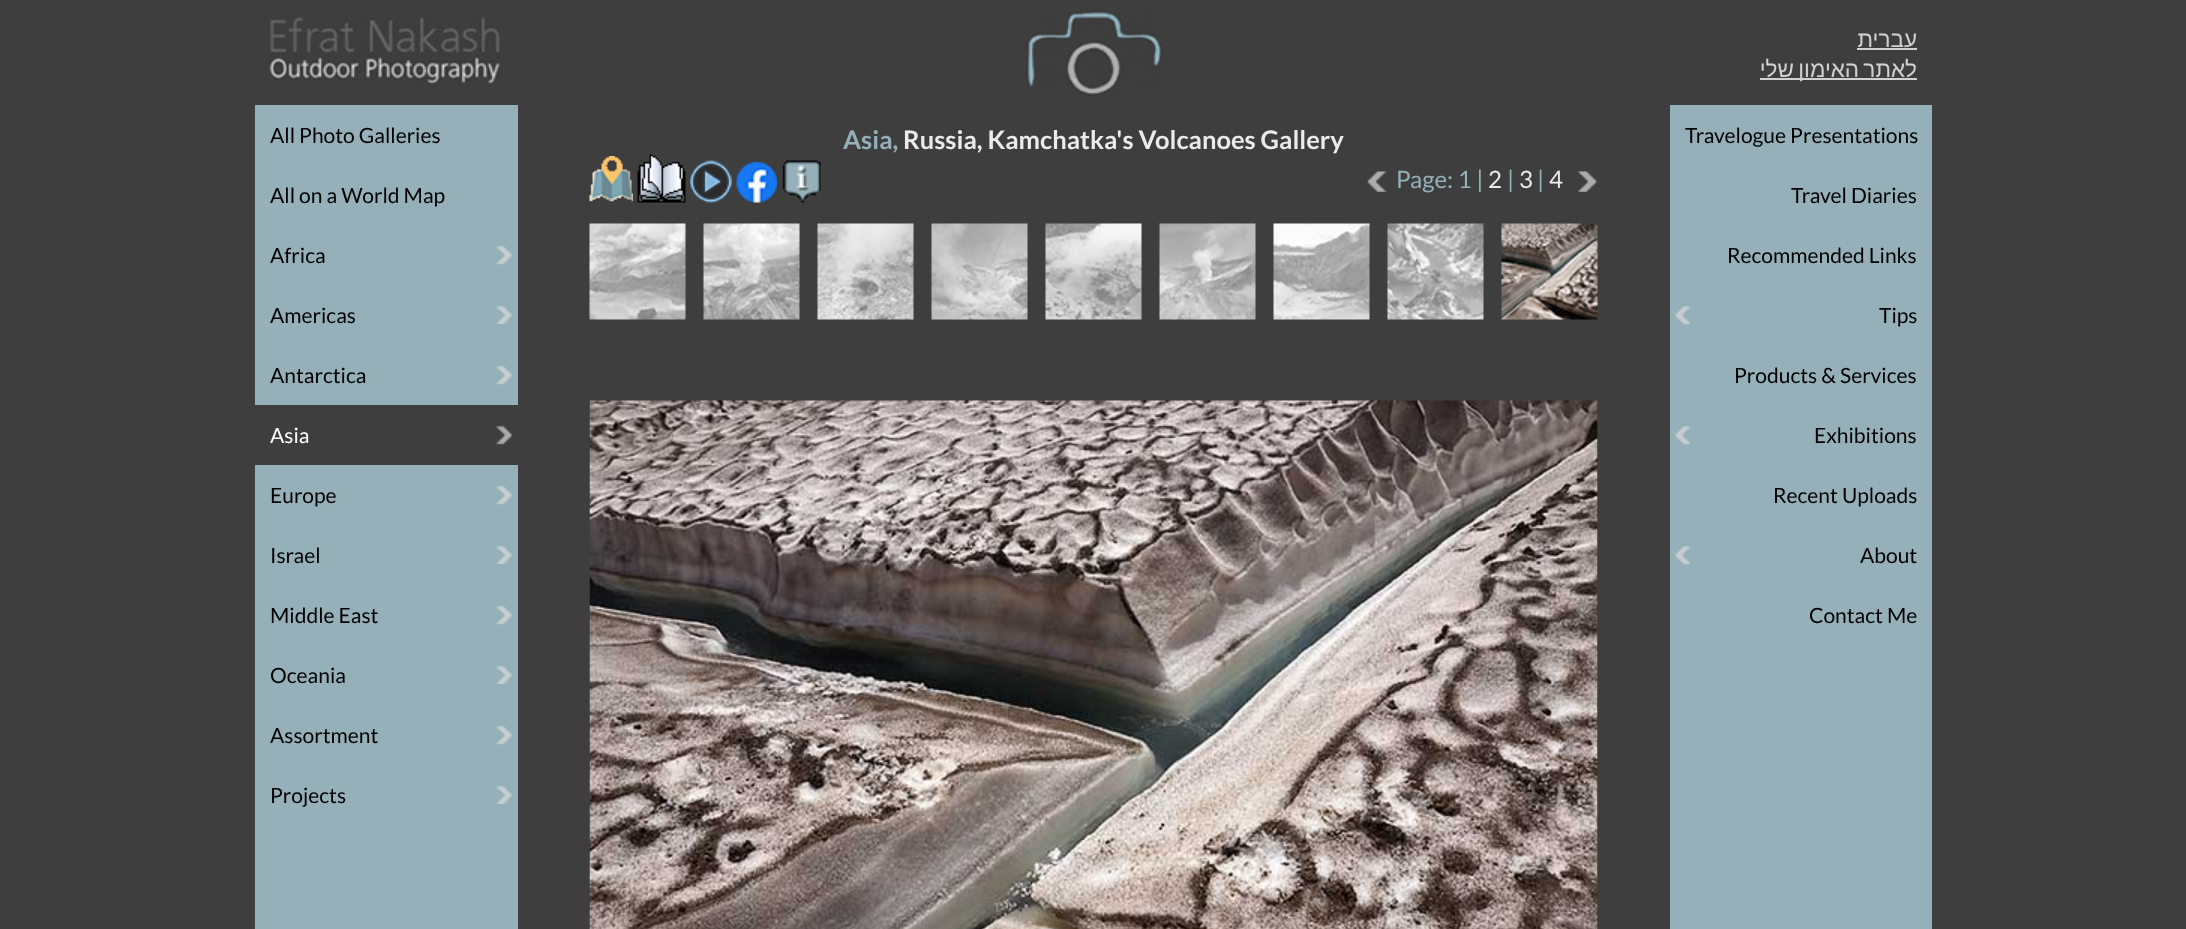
<svg xmlns="http://www.w3.org/2000/svg" width="2186" height="929" viewBox="0 0 2186 929">
  <rect width="100%" height="100%" fill="#3e3e3e"/>
  <image x="1026" y="10" width="137" height="86" href="img/1.png"/>
  <image x="269" y="17" width="231" height="67" href="img/2.png"/>
  <path d="M1857 48h60v2H1857z" fill="#d1d1d1"/>
  <path d="M1760 78h157v2H1760z" fill="#d1d1d1"/>
  <path d="M255 105h263v824H255z" fill="#95b0b9"/>
  <image x="496" y="245" width="16" height="20" href="img/3.png"/>
  <image x="496" y="305" width="16" height="20" href="img/3.png"/>
  <image x="496" y="365" width="16" height="20" href="img/3.png"/>
  <path d="M255 405h263v60H255z" fill="#3e3e3e"/>
  <image x="496" y="425" width="17" height="20" href="img/4.png"/>
  <image x="496" y="485" width="16" height="20" href="img/3.png"/>
  <image x="496" y="545" width="16" height="20" href="img/3.png"/>
  <image x="496" y="605" width="16" height="20" href="img/3.png"/>
  <image x="496" y="665" width="16" height="20" href="img/3.png"/>
  <image x="496" y="725" width="16" height="20" href="img/3.png"/>
  <image x="496" y="785" width="16" height="20" href="img/3.png"/>
  <path d="M1670 105h262v824H1670z" fill="#95b0b9"/>
  <image x="1675" y="305" width="16" height="20" href="img/5.png"/>
  <image x="1675" y="425" width="16" height="20" href="img/5.png"/>
  <image x="1675" y="545" width="16" height="20" href="img/5.png"/>
  <image x="589" y="156" width="44" height="46" href="img/6.png"/>
  <image x="637" y="154" width="49" height="49" href="img/7.png"/>
  <image x="690" y="160" width="42" height="43" href="img/8.png"/>
  <image x="736" y="162" width="41" height="41" href="img/9.png"/>
  <image x="782" y="160" width="39" height="43" href="img/10.png"/>
  <image x="1367" y="171" width="20" height="21" href="img/11.png"/>
  <image x="1577" y="171" width="20" height="21" href="img/12.png"/>
  <image x="589" y="223" width="97" height="97" href="img/13.png"/>
  <image x="703" y="223" width="97" height="97" href="img/14.png"/>
  <image x="817" y="223" width="97" height="97" href="img/15.png"/>
  <image x="931" y="223" width="97" height="97" href="img/16.png"/>
  <image x="1045" y="223" width="97" height="97" href="img/17.png"/>
  <image x="1159" y="223" width="97" height="97" href="img/18.png"/>
  <image x="1273" y="223" width="97" height="97" href="img/19.png"/>
  <image x="1387" y="223" width="97" height="97" href="img/20.png"/>
  <image x="1501" y="223" width="97" height="97" href="img/21.png"/>
  <image x="589" y="400" width="1009" height="529" href="img/22.png"/>
  <g font-family="Liberation Sans" font-size="22.5" direction="rtl" fill="#d1d1d1">
    <text x="1917" y="47">עברית</text>
    <text x="1917" y="77" word-spacing="-2">לאתר האימון שלי</text>
  </g>
  <g font-family="Lato" font-size="21" fill="#000">
    <text x="270" y="143">All Photo Galleries</text>
    <text x="270" y="203">All on a World Map</text>
    <text x="270" y="263">Africa</text>
    <text x="270" y="323">Americas</text>
    <text x="270" y="383">Antarctica</text>
  </g>
  <text x="270" y="443" font-family="Lato" font-size="21" fill="#fff">Asia</text>
  <g font-family="Lato" font-size="21" fill="#000">
    <text x="270" y="503">Europe</text>
    <text x="270" y="563">Israel</text>
    <text x="270" y="623">Middle East</text>
    <text x="270" y="683">Oceania</text>
    <text x="270" y="743">Assortment</text>
    <text x="270" y="803">Projects</text>
    <text x="1685" y="143">Travelogue Presentations</text>
    <text x="1791" y="203">Travel Diaries</text>
    <text x="1727" y="263">Recommended Links</text>
    <text x="1879" y="323">Tips</text>
    <text x="1734" y="383">Products &amp; Services</text>
    <text x="1814" y="443">Exhibitions</text>
    <text x="1773" y="503">Recent Uploads</text>
    <text x="1860" y="563">About</text>
    <text x="1809" y="623">Contact Me</text>
  </g>
  <text x="843" y="149" font-family="Lato" font-size="25.5" font-weight="bold" fill="#95b0b9">Asia,</text>
  <text x="903" y="149" font-family="Lato" font-size="25.5" font-weight="bold" fill="#ebebeb">Russia, Kamchatka's Volcanoes Gallery</text>
  <text x="1396" y="188" font-family="Lato" font-size="24" fill="#95b0b9">Page: 1 |</text>
  <text x="1488" y="188" font-family="Lato" font-size="24" fill="#ebebeb">2</text>
  <text x="1507" y="188" font-family="Lato" font-size="24" fill="#95b0b9">|</text>
  <text x="1519" y="188" font-family="Lato" font-size="24" fill="#ebebeb">3</text>
  <text x="1537" y="188" font-family="Lato" font-size="24" fill="#95b0b9">|</text>
  <text x="1549" y="188" font-family="Lato" font-size="24" fill="#ebebeb">4</text>
</svg>
